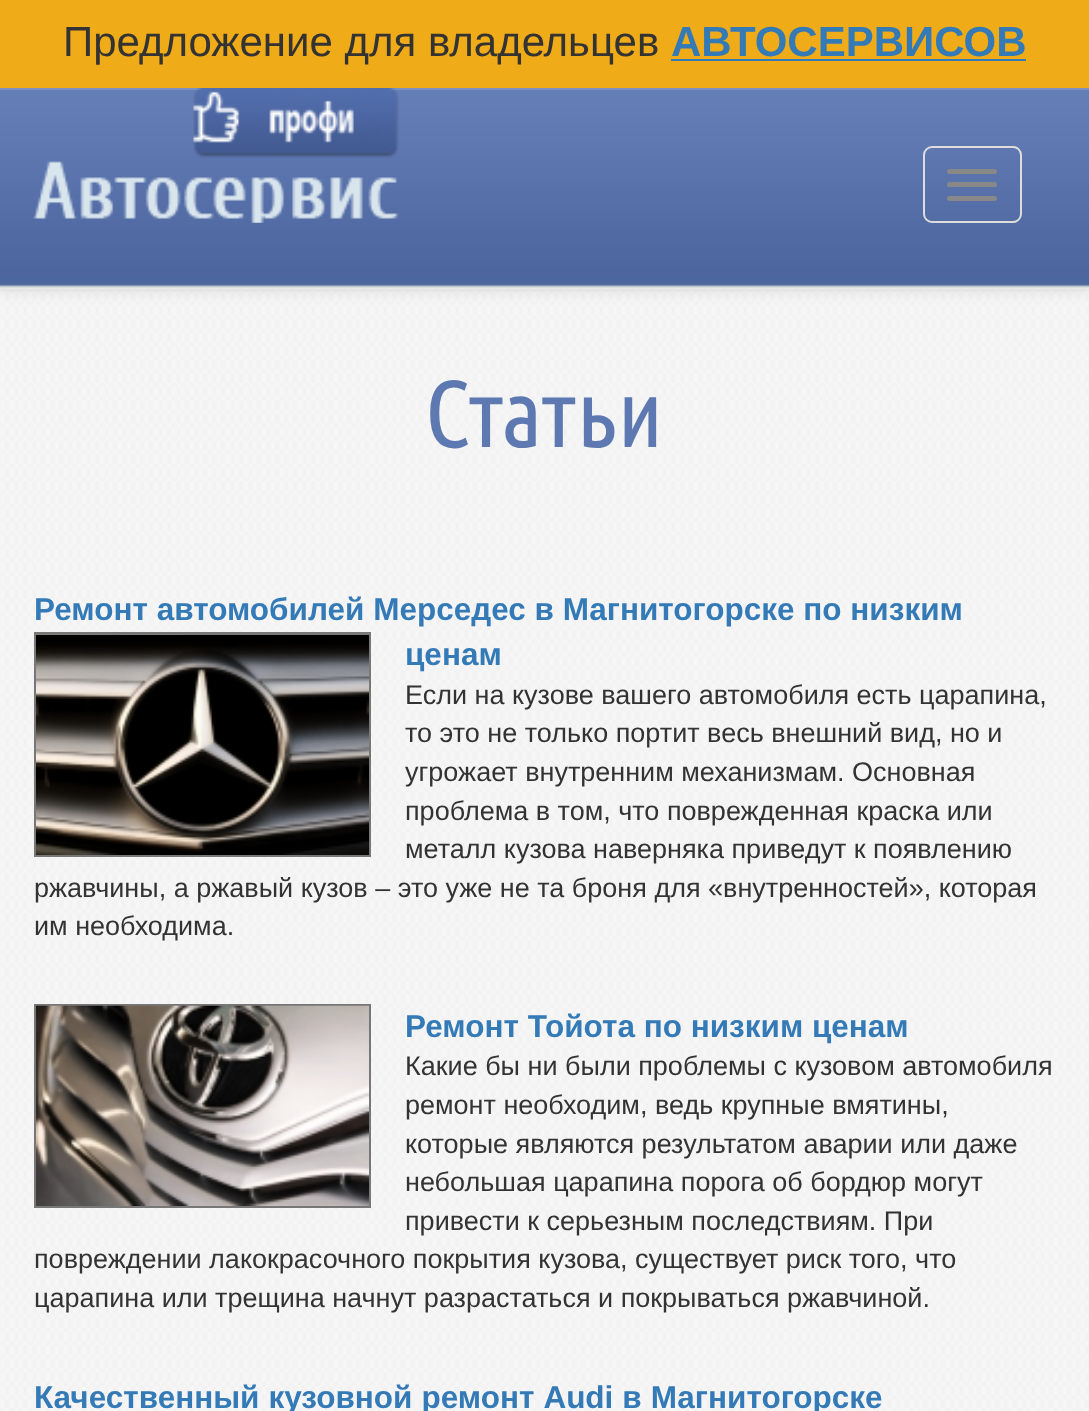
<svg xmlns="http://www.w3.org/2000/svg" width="1089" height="1411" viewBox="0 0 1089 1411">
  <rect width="100%" height="100%" fill="#fff"/>
  <image x="0" y="290" width="1089" height="1121" href="img/1.png"/>
  <path d="M0 90h1089v203H0z" fill="#00000012" filter="blur(5.5px)"/>
  <path d="M0 0h1089v88H0z" fill="#f0ab18"/>
  <path d="M671 59h355v2H671z" fill="#337ab7"/>
  <image x="0" y="90" width="1089" height="201" href="img/2.png"/>
  <path d="M0 88h1089v2H0z" fill="#7c91c2"/>
  <path d="M0 288h1089v2H0z" fill="#e7e7e7"/>
  <image x="33" y="88" width="366" height="135" href="img/3.png"/>
  <rect x="924" y="147" width="97" height="75" rx="8" fill="none" stroke="#ddd" stroke-width="2"/>
  <rect x="947" y="169" width="50" height="5" rx="2.5" fill="#888"/>
  <rect x="947" y="182" width="50" height="5" rx="2.5" fill="#888"/>
  <rect x="947" y="196" width="50" height="5" rx="2.5" fill="#888"/>
  <path d="M35 633h335v223H35z" fill="none" stroke="#777" stroke-width="2"/>
  <image x="36" y="634" width="333" height="221" href="img/4.png"/>
  <path d="M35 1005h335v202H35z" fill="none" stroke="#777" stroke-width="2"/>
  <image x="36" y="1005" width="333" height="201" href="img/5.png"/>
  <text x="63" y="56" font-family="Liberation Sans" font-size="42" fill="#333">Предложение для владельцев</text>
  <text x="671" y="56" font-family="Liberation Sans" font-size="42" font-weight="bold" fill="#337ab7">АВТОСЕРВИСОВ</text>
  <text x="425" y="447" font-family="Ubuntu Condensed" font-size="94.5" fill="#5e78b1">Статьи</text>
  <g font-family="Liberation Sans" font-size="31.5" font-weight="bold" fill="#337ab7">
    <text x="34" y="620">Ремонт автомобилей Мерседес в Магнитогорске по низким</text>
    <text x="405" y="665">ценам</text>
  </g>
  <g font-family="Liberation Sans" font-size="27" fill="#333">
    <text x="405" y="704">Если на кузове вашего автомобиля есть царапина,</text>
    <text x="405" y="742">то это не только портит весь внешний вид, но и</text>
    <text x="405" y="781">угрожает внутренним механизмам. Основная</text>
    <text x="405" y="820">проблема в том, что поврежденная краска или</text>
    <text x="405" y="858">металл кузова наверняка приведут к появлению</text>
    <text x="34" y="897">ржавчины, а ржавый кузов – это уже не та броня для «внутренностей», которая</text>
    <text x="34" y="935">им необходима.</text>
  </g>
  <text x="405" y="1037" font-family="Liberation Sans" font-size="31.5" font-weight="bold" fill="#337ab7">Ремонт Тойота по низким ценам</text>
  <g font-family="Liberation Sans" font-size="27" fill="#333">
    <text x="405" y="1075">Какие бы ни были проблемы с кузовом автомобиля</text>
    <text x="405" y="1114">ремонт необходим, ведь крупные вмятины,</text>
    <text x="405" y="1153">которые являются результатом аварии или даже</text>
    <text x="405" y="1191">небольшая царапина порога об бордюр могут</text>
    <text x="405" y="1230">привести к серьезным последствиям. При</text>
    <text x="34" y="1268">повреждении лакокрасочного покрытия кузова, существует риск того, что</text>
    <text x="34" y="1307">царапина или трещина начнут разрастаться и покрываться ржавчиной.</text>
  </g>
  <text x="34" y="1408" word-spacing="0.25" font-family="Liberation Sans" font-size="31.5" font-weight="bold" fill="#337ab7">Качественный кузовной ремонт Audi в Магнитогорске</text>
</svg>
